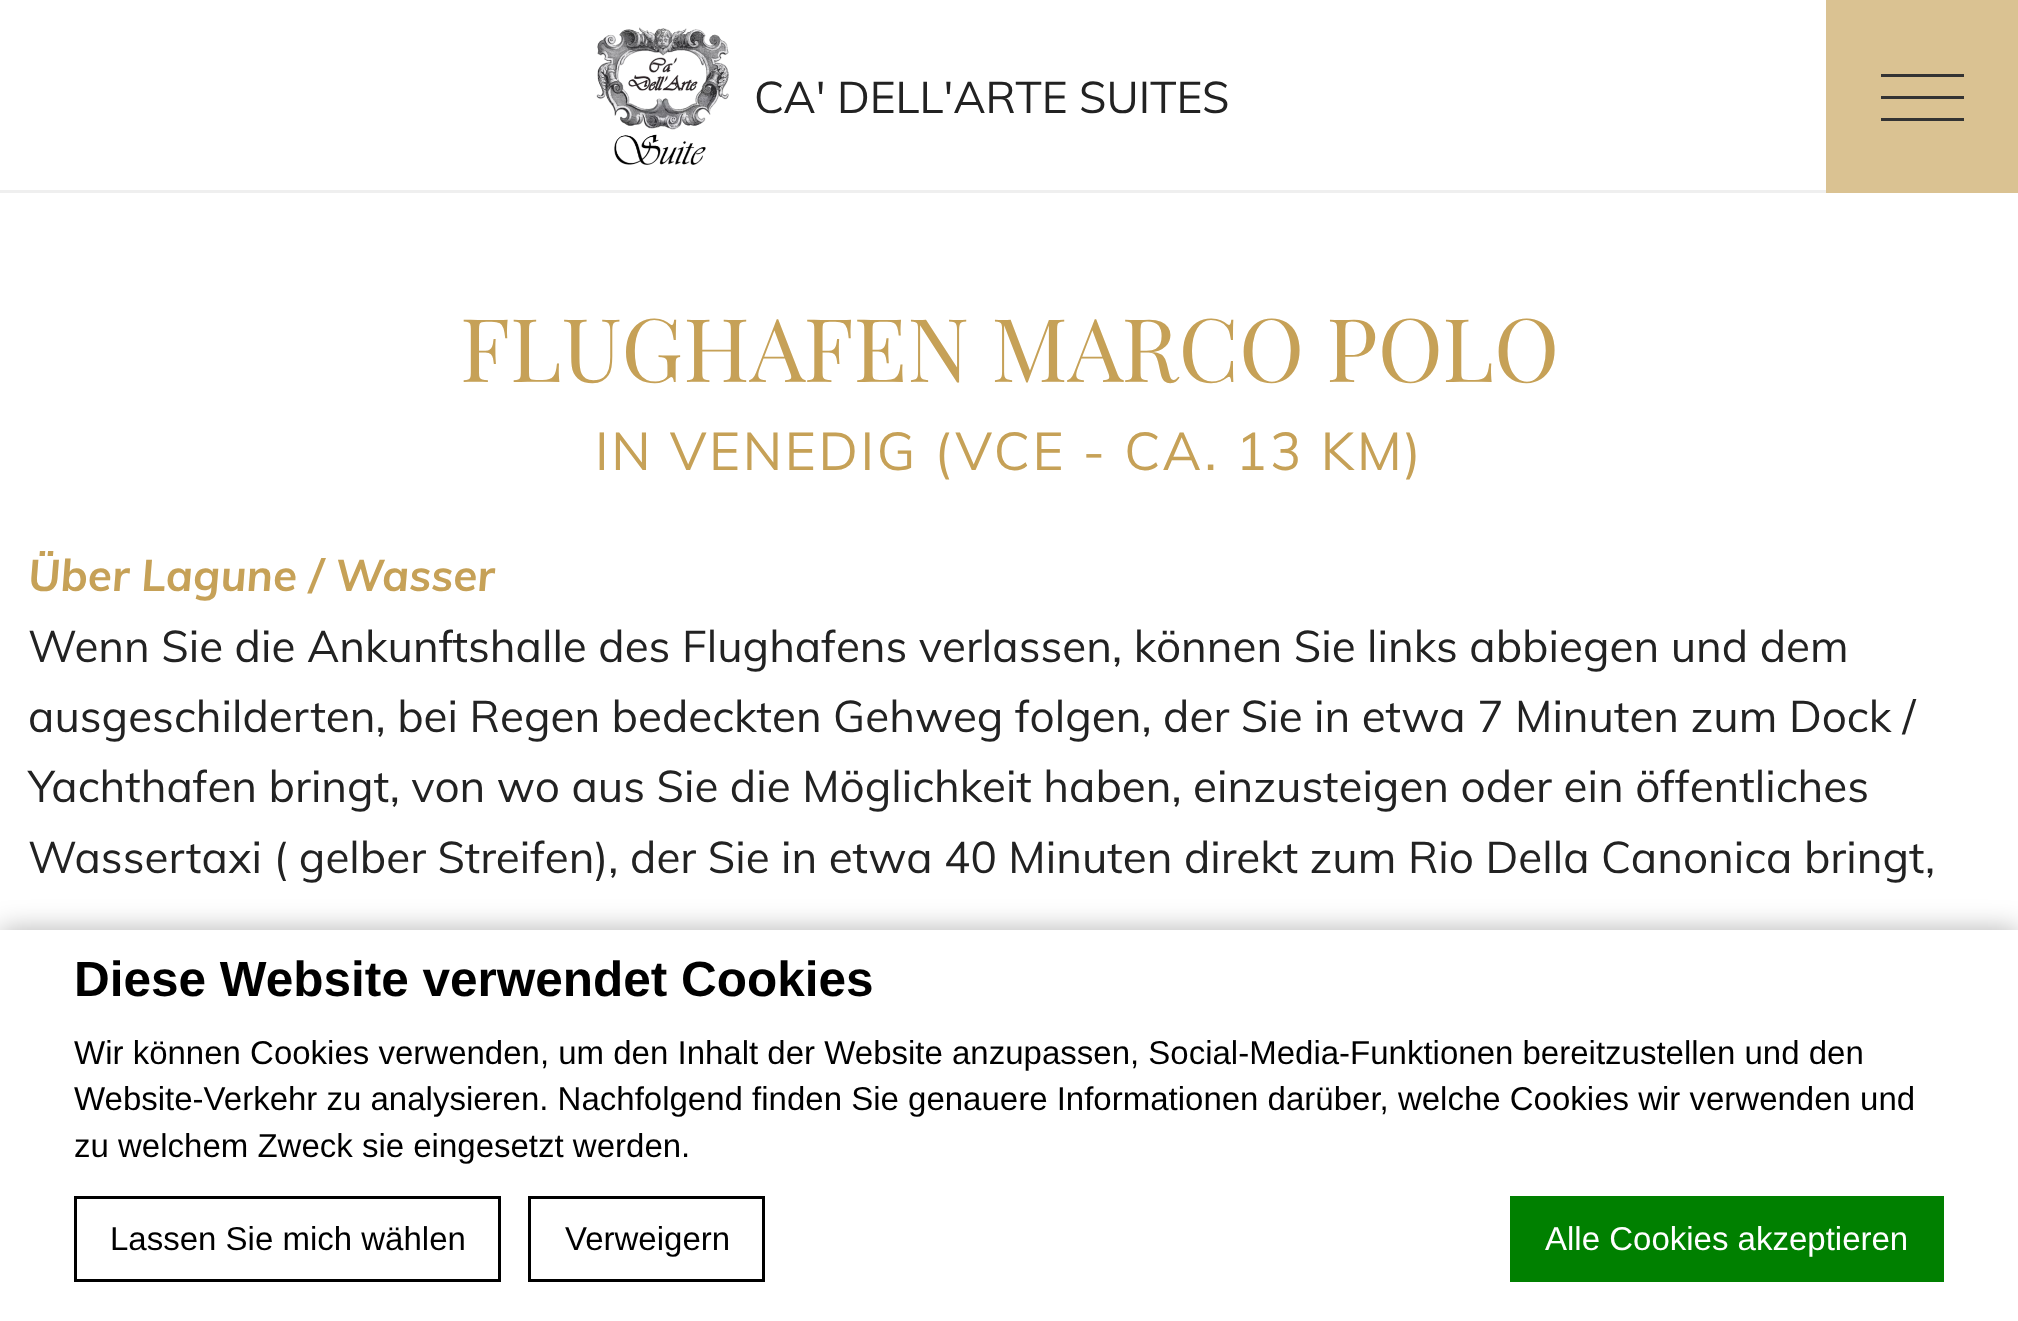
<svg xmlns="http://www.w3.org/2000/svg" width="2018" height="1321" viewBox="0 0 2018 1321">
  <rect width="100%" height="100%" fill="#fff"/>
  <path d="M0 190h1826v3H0z" fill="#efefef"/>
  <image x="596" y="27" width="133" height="138" href="img/1.png"/>
  <path d="M1826 0h192v193H1826z" fill="#dac292"/>
  <path d="M1881 96h83v3H1881z" fill="#333"/>
  <path d="M1881 74h83v3H1881z" fill="#333"/>
  <path d="M1881 118h83v3H1881z" fill="#333"/>
  <path d="M0 930h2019v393H0z" fill="#0000004d" filter="blur(14px)"/>
  <path d="M0 930h2018v391H0z" fill="#fff"/>
  <path d="M75.5 1197.5h424v83H75.5z" fill="none" stroke="#000" stroke-width="3"/>
  <path d="M529.5 1197.5h234v83H529.5z" fill="none" stroke="#000" stroke-width="3"/>
  <path d="M1510 1196h434v86H1510z" fill="#008000"/>
  <text x="754" y="113" font-family="Muli" font-size="44" fill="#222">CA' DELL'ARTE SUITES</text>
  <text x="460" y="382" font-family="Playfair Display" font-size="88" fill="#c6a157">FLUGHAFEN MARCO POLO</text>
  <text x="595" y="470" font-family="Muli" font-size="52.75" letter-spacing="2.65" fill="#c6a157">IN VENEDIG (VCE - CA. 13 KM)</text>
  <text x="28" y="591" font-family="Muli" font-size="44" font-weight="bold" font-style="italic" fill="#c6a157">Über Lagune / Wasser</text>
  <g font-family="Muli" font-size="44" fill="#222">
    <text x="28" y="662">Wenn Sie die Ankunftshalle des Flughafens verlassen, können Sie links abbiegen und dem</text>
    <text x="28" y="732">ausgeschilderten, bei Regen bedeckten Gehweg folgen, der Sie in etwa 7 Minuten zum Dock /</text>
    <text x="28" y="802">Yachthafen bringt, von wo aus Sie die Möglichkeit haben, einzusteigen oder ein öffentliches</text>
    <text x="28" y="873">Wassertaxi ( gelber Streifen), der Sie in etwa 40 Minuten direkt zum Rio Della Canonica bringt,</text>
  </g>
  <text x="74" y="996" font-family="Liberation Sans" font-size="49.5" font-weight="bold" fill="#000">Diese Website verwendet Cookies</text>
  <g font-family="Liberation Sans" font-size="33" fill="#000">
    <text x="74" y="1064">Wir können Cookies verwenden, um den Inhalt der Website anzupassen, Social-Media-Funktionen bereitzustellen und den</text>
    <text x="74" y="1110">Website-Verkehr zu analysieren. Nachfolgend finden Sie genauere Informationen darüber, welche Cookies wir verwenden und</text>
    <text x="74" y="1157">zu welchem Zweck sie eingesetzt werden.</text>
    <text x="110" y="1250">Lassen Sie mich wählen</text>
    <text x="565" y="1250">Verweigern</text>
  </g>
  <text x="1545" y="1250" font-family="Liberation Sans" font-size="33" fill="#fff">Alle Cookies akzeptieren</text>
</svg>
